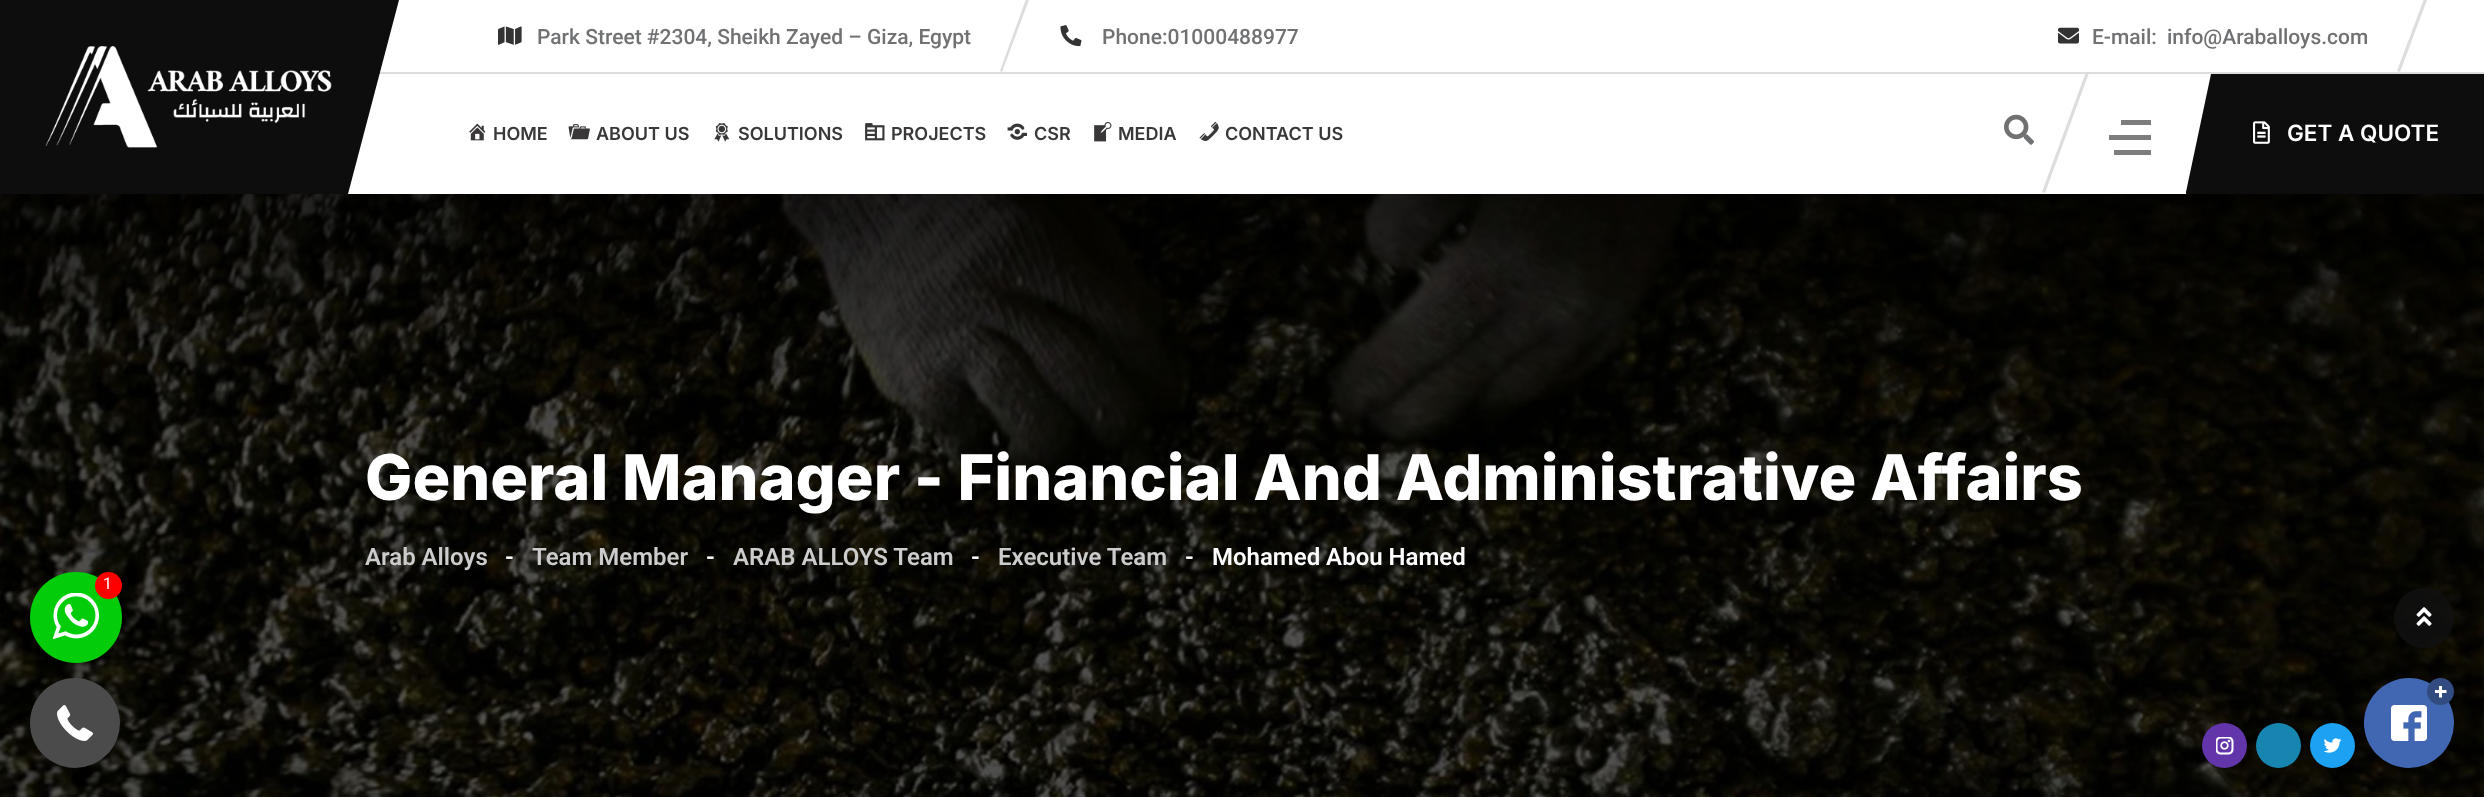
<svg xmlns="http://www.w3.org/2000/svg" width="2484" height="797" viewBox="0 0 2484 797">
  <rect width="100%" height="100%" fill="#fff"/>
  <path d="M377 72h2107v2H377z" fill="#ddd"/>
  <path d="M-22 0V194H348L399 0Z" fill="#0d0d0d"/>
  <image x="45" y="46" width="287" height="102" href="img/1.png"/>
  <image x="498" y="26" width="24" height="19" href="img/2.png"/>
  <path d="M1026-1L1029 0L1002 72L1000 71Z" fill="#ddd"/>
  <image x="1060" y="25" width="22" height="22" href="img/3.png"/>
  <image x="2058" y="27" width="21" height="17" href="img/4.png"/>
  <path d="M2424-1L2427 0L2400 72L2397 71Z" fill="#ddd"/>
  <image x="469" y="123" width="17" height="18" href="img/5.png"/>
  <image x="568" y="124" width="22" height="16" href="img/6.png"/>
  <image x="714" y="123" width="16" height="19" href="img/7.png"/>
  <image x="865" y="123" width="20" height="18" href="img/8.png"/>
  <image x="1007" y="123" width="20" height="17" href="img/9.png"/>
  <image x="1094" y="122" width="18" height="20" href="img/10.png"/>
  <image x="1199" y="121" width="20" height="20" href="img/11.png"/>
  <image x="2004" y="114" width="30" height="31" href="img/12.png"/>
  <path d="M2086 72L2089 73L2045 193L2042 192Z" fill="#ddd"/>
  <path d="M2121 120h30v5H2121z" fill="#7d7d7d"/>
  <path d="M2109 135h42v5H2109z" fill="#7d7d7d"/>
  <path d="M2114 150h37v5H2114z" fill="#7d7d7d"/>
  <path d="M2186 192L2211 74H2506V194H2186Z" fill="#0d0d0d"/>
  <image x="2253" y="121" width="17" height="23" href="img/13.png"/>
  <image x="0" y="194" width="2484" height="603" href="img/14.png"/>
  <rect x="30" y="579" width="92" height="92" rx="46" fill="#00000033" filter="blur(15px)"/>
  <rect x="30" y="572" width="92" height="91" rx="45.5" fill="#03cc0b"/>
  <rect x="30" y="686" width="90" height="90" rx="45" fill="#00000033" filter="blur(7.5px)"/>
  <circle cx="75" cy="723" r="45" fill="#4b4b4b"/>
  <image x="57" y="705" width="36" height="36" href="img/15.png"/>
  <image x="53" y="593" width="46" height="46" href="img/16.png"/>
  <circle cx="108.5" cy="585.5" r="13.5" fill="#f00"/>
  <circle cx="2424" cy="618" r="30" fill="#111111cc"/>
  <image x="2416" y="607" width="16" height="19" href="img/17.png"/>
  <circle cx="2224.5" cy="745.5" r="22.5" fill="#6235ab"/>
  <image x="2216" y="737" width="18" height="18" href="img/18.png"/>
  <circle cx="2278.5" cy="745.5" r="22.5" fill="#1686b0"/>
  <circle cx="2332.5" cy="745.5" r="22.5" fill="#1da1f2"/>
  <image x="2324" y="738" width="18" height="15" href="img/19.png"/>
  <circle cx="2409" cy="723" r="45" fill="#4267b2"/>
  <circle cx="2440.5" cy="691.5" r="13.5" fill="#324c81"/>
  <image x="2435" y="686" width="12" height="12" href="img/20.png"/>
  <image x="2391" y="705" width="36" height="36" href="img/21.png"/>
  <g font-family="Roboto" font-size="21" font-weight="500" fill="#707173">
    <text x="537" y="44">Park Street #2304, Sheikh Zayed – Giza, Egypt</text>
    <text x="1102" y="44">Phone:01000488977</text>
    <text x="2092" y="44">E-mail:</text>
    <text x="2167" y="44">info@Araballoys.com</text>
  </g>
  <g font-family="Inter" font-size="18" font-weight="600" fill="#393738">
    <text x="493" y="140">HOME</text>
    <text x="596" y="140">ABOUT US</text>
    <text x="738" y="140">SOLUTIONS</text>
    <text x="891" y="140">PROJECTS</text>
    <text x="1034" y="140">CSR</text>
    <text x="1118" y="140">MEDIA</text>
    <text x="1225" y="140">CONTACT US</text>
  </g>
  <text x="2287" y="141" font-family="Inter" font-size="22.5" font-weight="600" fill="#fff">GET A QUOTE</text>
  <text x="365" y="500" font-family="Inter" font-size="63" font-weight="800" fill="#fff">General Manager - Financial And Administrative Affairs</text>
  <text x="365" y="565" font-family="Roboto" font-size="24" font-weight="600" fill="#ccc">Arab Alloys</text>
  <text x="505" y="565" font-family="Roboto" font-size="24" font-weight="600" fill="#fff">-</text>
  <text x="532" y="565" font-family="Roboto" font-size="24" font-weight="600" fill="#ccc">Team Member</text>
  <text x="706" y="565" font-family="Roboto" font-size="24" font-weight="600" fill="#fff">-</text>
  <text x="733" y="565" font-family="Roboto" font-size="24" font-weight="600" fill="#ccc">ARAB ALLOYS Team</text>
  <text x="971" y="565" font-family="Roboto" font-size="24" font-weight="600" fill="#fff">-</text>
  <text x="998" y="565" font-family="Roboto" font-size="24" font-weight="600" fill="#ccc">Executive Team</text>
  <g font-family="Roboto" font-size="24" font-weight="600" fill="#fff">
    <text x="1185" y="565">-</text>
    <text x="1212" y="565">Mohamed Abou Hamed</text>
  </g>
  <text x="103" y="589" font-family="Roboto" font-size="16" fill="#fff">1</text>
</svg>
